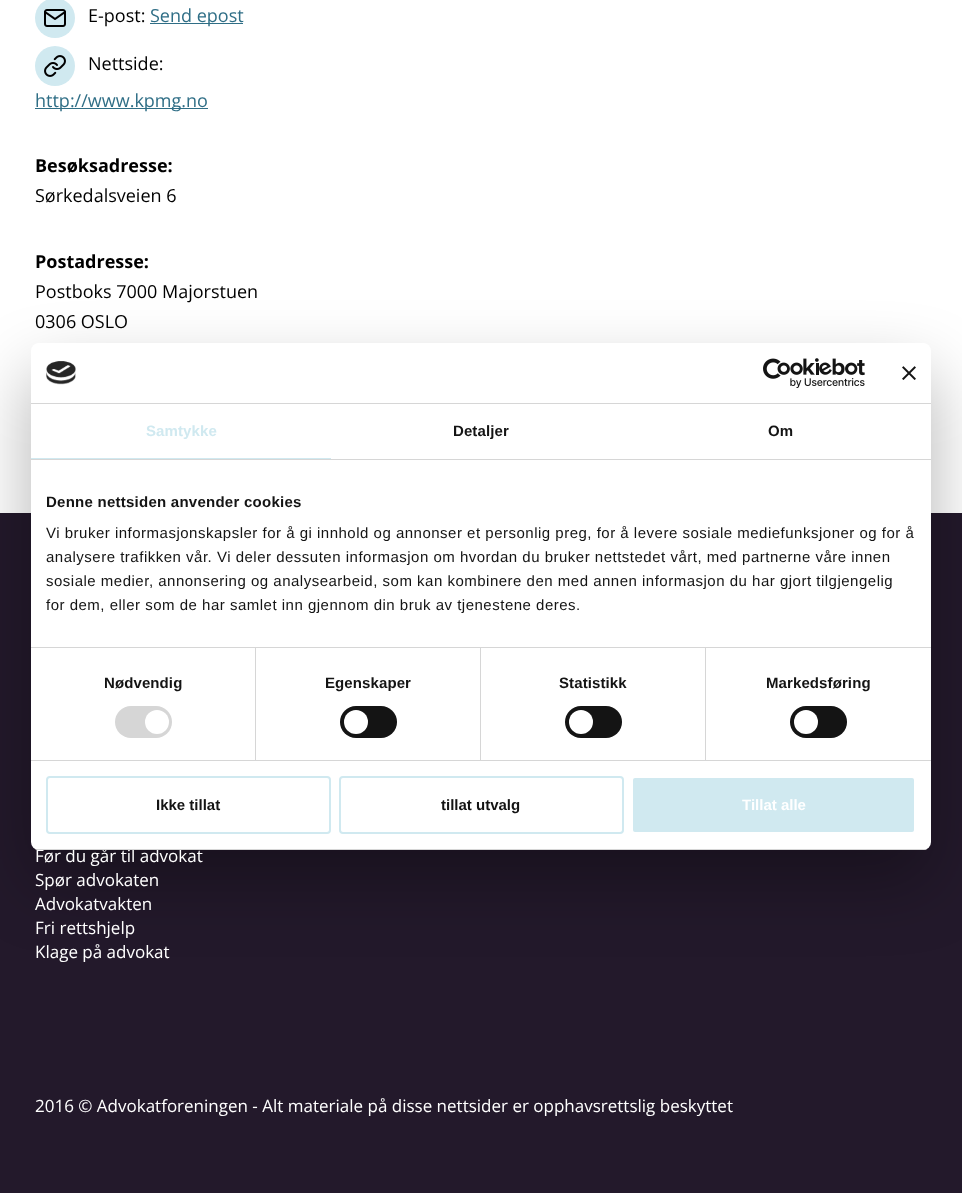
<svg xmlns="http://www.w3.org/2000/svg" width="962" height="1193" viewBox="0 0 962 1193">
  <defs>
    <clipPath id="clip1"><rect x="31" y="343" width="900" height="507" rx="8"/></clipPath>
  </defs>
  <rect width="100%" height="100%" fill="#fff"/>
  <circle cx="55" cy="18" r="20" fill="#d0e9f0"/>
  <image x="44" y="9" width="22" height="18" href="img/1.png"/>
  <path d="M150 23h93v1H150z" fill="#2f6e86"/>
  <circle cx="55" cy="66" r="20" fill="#d0e9f0"/>
  <image x="44" y="55" width="22" height="22" href="img/2.png"/>
  <path d="M35 108h173v1H35z" fill="#2f6e86"/>
  <path d="M0 513h962v680H0z" fill="#23192b"/>
  <rect x="31" y="375" width="900" height="507" rx="8" fill="#0000004d" filter="blur(34px)"/>
  <rect x="31" y="343" width="900" height="507" rx="8" fill="#fff"/>
  <path d="M31 403h900v1H31z" fill="#d6d6d6"/>
  <image x="46" y="361" width="30" height="24" href="img/3.png"/>
  <image x="763" y="358" width="102" height="30" href="img/4.png"/>
  <image x="902" y="366" width="14" height="14" href="img/5.png"/>
  <path d="M31 459h900v1H31z" fill="#d6d6d6"/>
  <path d="M31 458h300v1H31z" fill="#d0e9f0"/>
  <path d="M31 647h900v1H31z" fill="#d6d6d6"/>
  <path d="M31 760h900v1H31z" fill="#d6d6d6"/>
  <path d="M255 648h1v112H255z" fill="#d6d6d6"/>
  <rect x="115" y="706" width="57" height="32" rx="16" fill="#d6d6d6"/>
  <circle cx="157" cy="722" r="12" fill="#fff"/>
  <path d="M480 648h1v112H480z" fill="#d6d6d6"/>
  <rect x="340" y="706" width="57" height="32" rx="16" fill="#141414"/>
  <circle cx="356" cy="722" r="12" fill="#fff"/>
  <path d="M705 648h1v112H705z" fill="#d6d6d6"/>
  <rect x="565" y="706" width="57" height="32" rx="16" fill="#141414"/>
  <circle cx="581" cy="722" r="12" fill="#fff"/>
  <rect x="790" y="706" width="57" height="32" rx="16" fill="#141414"/>
  <circle cx="806" cy="722" r="12" fill="#fff"/>
  <rect x="47" y="777" width="283" height="56" rx="3" fill="none" stroke="#d0e9f0" stroke-width="2"/>
  <rect x="340" y="777" width="283" height="56" rx="3" fill="none" stroke="#d0e9f0" stroke-width="2"/>
  <rect x="632" y="777" width="283" height="56" rx="3" fill="#d0e9f0" stroke="#fff" stroke-width="2"/>
  <text x="88" y="22" font-family="Open Sans" font-size="18" fill="#000">E-post:</text>
  <text x="150" y="22" font-family="Open Sans" font-size="18" fill="#2f6e86">Send epost</text>
  <text x="88" y="70" font-family="Open Sans" font-size="18" fill="#000">Nettside:</text>
  <text x="35" y="107" font-family="Open Sans" font-size="18" fill="#2f6e86">http://www.kpmg.no</text>
  <text x="35" y="172" font-family="Open Sans" font-size="18" font-weight="bold" fill="#000">Besøksadresse:</text>
  <text x="35" y="202" font-family="Open Sans" font-size="18" fill="#000">Sørkedalsveien 6</text>
  <text x="35" y="268" font-family="Open Sans" font-size="18" font-weight="bold" fill="#000">Postadresse:</text>
  <g font-family="Open Sans" font-size="18" fill="#000">
    <text x="35" y="298">Postboks 7000 Majorstuen</text>
    <text x="35" y="328">0306 OSLO</text>
  </g>
  <g font-family="Open Sans" font-size="17" fill="#fff">
    <text x="35" y="862">Før du går til advokat</text>
    <text x="35" y="886">Spør advokaten</text>
    <text x="35" y="910">Advokatvakten</text>
    <text x="35" y="934">Fri rettshjelp</text>
    <text x="35" y="958">Klage på advokat</text>
    <text x="35" y="1112">2016 © Advokatforeningen - Alt materiale på disse nettsider er opphavsrettslig beskyttet</text>
  </g>
  <text x="146" y="436" font-family="Liberation Sans" font-size="15" font-weight="bold" letter-spacing="0.1" fill="#d0e9f0">Samtykke</text>
  <g font-family="Liberation Sans" font-size="15" font-weight="bold" letter-spacing="0.1" fill="#141414">
    <text x="453" y="436">Detaljer</text>
    <text x="768" y="436">Om</text>
  </g>
  <text x="46" y="507" font-family="Liberation Sans" font-size="15" font-weight="bold" letter-spacing="0.25" fill="#141414">Denne nettsiden anvender cookies</text>
  <g font-family="Liberation Sans" font-size="15" letter-spacing="0.5" fill="#141414">
    <text x="46" y="538">Vi bruker informasjonskapsler for å gi innhold og annonser et personlig preg, for å levere sosiale mediefunksjoner og for å</text>
    <text x="46" y="562">analysere trafikken vår. Vi deler dessuten informasjon om hvordan du bruker nettstedet vårt, med partnerne våre innen</text>
    <text x="46" y="586">sosiale medier, annonsering og analysearbeid, som kan kombinere den med annen informasjon du har gjort tilgjengelig</text>
    <text x="46" y="610">for dem, eller som de har samlet inn gjennom din bruk av tjenestene deres.</text>
  </g>
  <g font-family="Liberation Sans" font-size="15" font-weight="bold" letter-spacing="0.1" fill="#141414">
    <text x="104" y="688">Nødvendig</text>
    <text x="325" y="688">Egenskaper</text>
    <text x="559" y="688">Statistikk</text>
    <text x="766" y="688">Markedsføring</text>
  </g>
  <g clip-path="url(#clip1)">
    <path d="M31 849h900v1H31z" fill="#d6d6d6"/>
  </g>
  <g font-family="Liberation Sans" font-size="15" font-weight="bold" fill="#141414">
    <text x="156" y="810">Ikke tillat</text>
    <text x="441" y="810">tillat utvalg</text>
  </g>
  <text x="742" y="810" font-family="Liberation Sans" font-size="15" font-weight="bold" fill="#fff">Tillat alle</text>
</svg>
